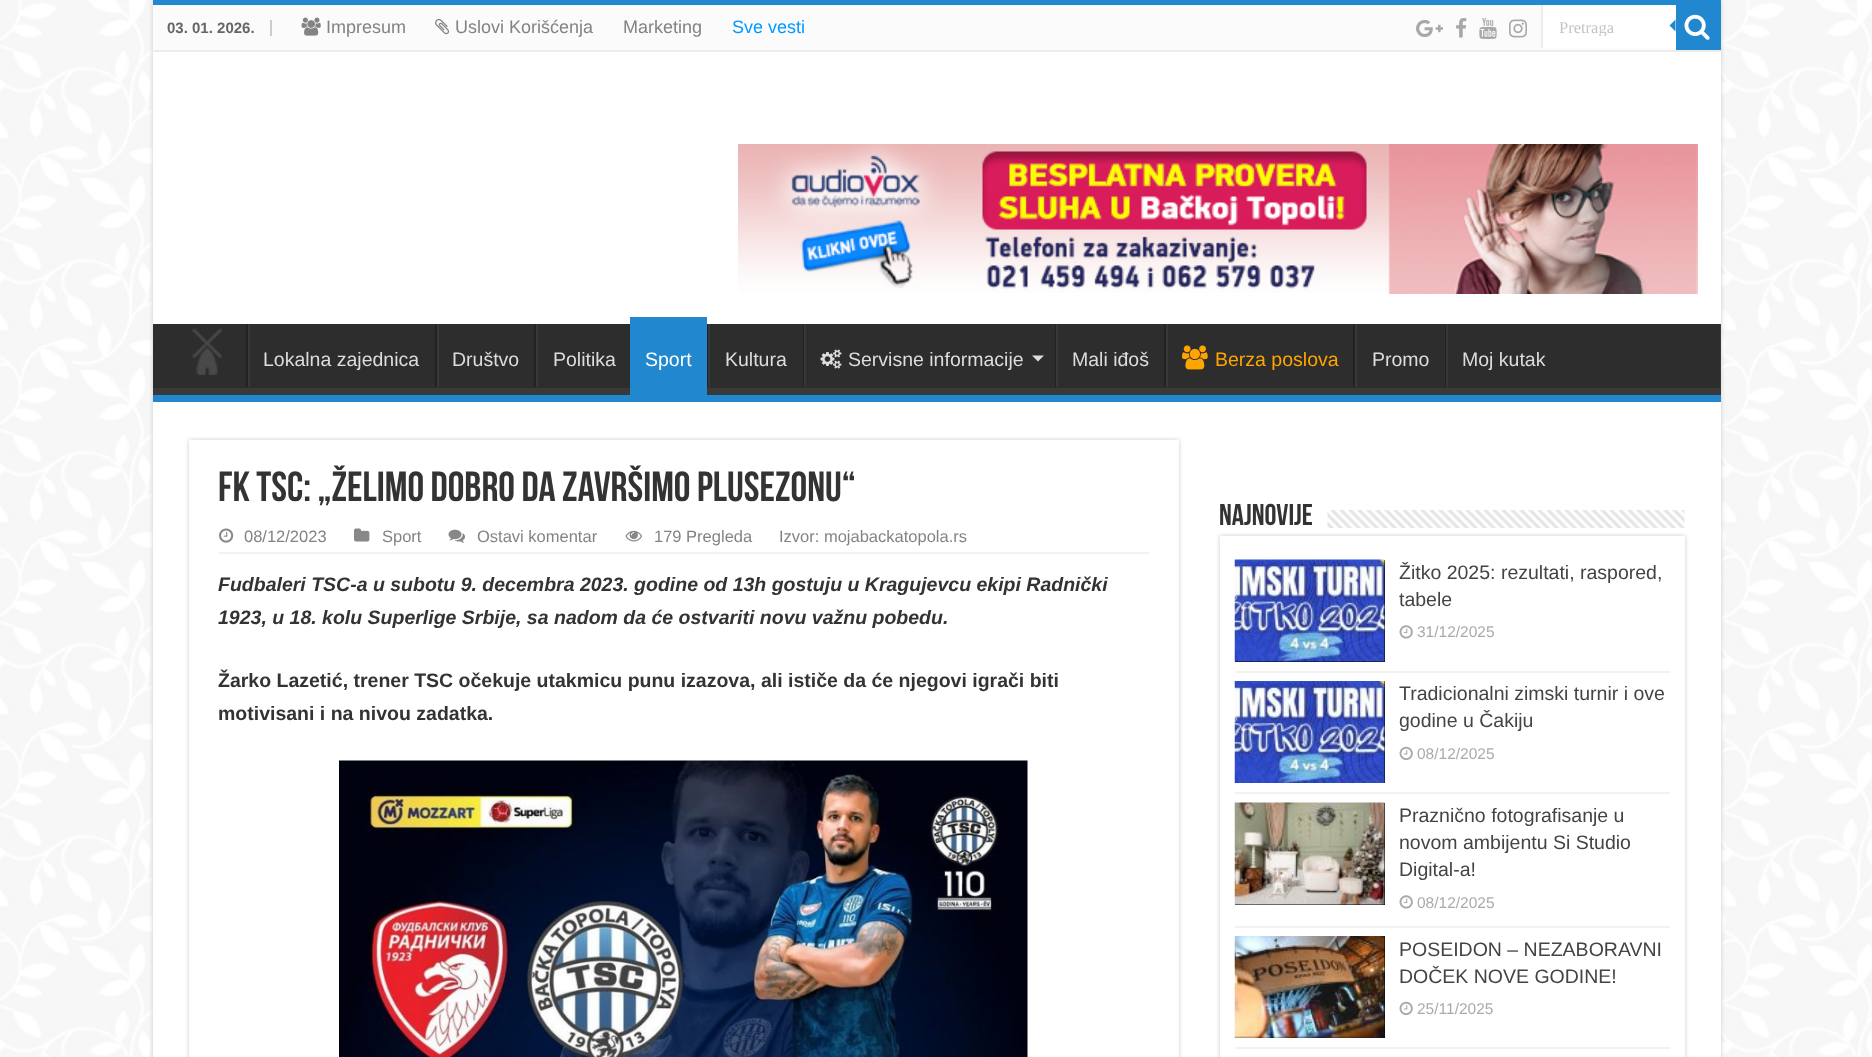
<svg xmlns="http://www.w3.org/2000/svg" width="1872" height="1057" viewBox="0 0 1872 1057">
  <defs>
    <clipPath id="clip1"><path d="M153 324h1568v71H153z"/></clipPath>
    <clipPath id="clip2"><path d="M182 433H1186V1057H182ZM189 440H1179V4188H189Z" clip-rule="evenodd"/></clipPath>
    <clipPath id="clip3"><path d="M1560 18h98v18H1560z"/></clipPath>
  </defs>
  <rect width="100%" height="100%" fill="#fff"/>
  <image x="0" y="0" width="1872" height="1057" href="img/1.png"/>
  <path d="M153 0h1568v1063H153z" fill="#cacaca" filter="blur(2px)"/>
  <path d="M153 52h1568v1005H153z" fill="#fff"/>
  <path d="M153 0h1568v5H153z" fill="#2187cf"/>
  <path d="M153 5h1523v45H153z" fill="#fbfbfb"/>
  <path d="M153 50h1568v2H153z" fill="#ececec"/>
  <path d="M270 20h2v16H270z" fill="#ccc"/>
  <image x="301" y="17" width="20" height="19" href="img/2.png"/>
  <image x="435" y="18" width="15" height="17" href="img/3.png"/>
  <image x="1416" y="19" width="27" height="19" href="img/4.png"/>
  <image x="1456" y="18" width="11" height="20" href="img/5.png"/>
  <image x="1479" y="18" width="18" height="21" href="img/6.png"/>
  <image x="1509" y="19" width="18" height="19" href="img/7.png"/>
  <path d="M1543 5h133v43H1543z" fill="#fff"/>
  <path d="M1541 5h2v43H1541z" fill="#ececec"/>
  <path d="M1676 5h45v45H1676z" fill="#2187cf"/>
  <image x="1684" y="14" width="26" height="26" href="img/8.png"/>
  <path d="M1675.5 19.5V31.5L1669.5 25.5Z" fill="#2187cf"/>
  <image x="738" y="144" width="960" height="150" href="img/9.png"/>
  <path d="M153 324h1567v64H153z" fill="#2d2d2d"/>
  <g clip-path="url(#clip1)">
    <path d="M4 176H1869V543H4ZM152 315H1719C1720 315 1720 316 1720 316V387C1720 388 1720 388 1719 388H152C151 388 150 388 150 387V316C150 316 151 315 152 315Z" fill="#393939" fill-rule="evenodd"/>
  </g>
  <path d="M153 395h1568v7H153z" fill="#2187cf"/>
  <image x="192" y="328" width="30" height="47" href="img/10.png"/>
  <path d="M246 324h2v63H246z" fill="#222"/>
  <path d="M248 324h2v63H248z" fill="#383838"/>
  <path d="M435 324h2v63H435z" fill="#222"/>
  <path d="M437 324h2v63H437z" fill="#383838"/>
  <path d="M534 324h2v63H534z" fill="#222"/>
  <path d="M536 324h2v63H536z" fill="#383838"/>
  <path d="M630 317h77v78H630z" fill="#2187cf"/>
  <path d="M707 324h1v63H707z" fill="#222"/>
  <path d="M708 324h2v63H708z" fill="#383838"/>
  <path d="M803 324h1v63H803z" fill="#222"/>
  <path d="M804 324h2v63H804z" fill="#383838"/>
  <image x="820" y="349" width="22" height="20" href="img/11.png"/>
  <path d="M1032 355.5H1044L1038 361.5Z" fill="#ddd"/>
  <path d="M1055 324h1v63H1055z" fill="#222"/>
  <path d="M1056 324h2v63H1056z" fill="#383838"/>
  <path d="M1164 324h2v63H1164z" fill="#222"/>
  <path d="M1166 324h2v63H1166z" fill="#383838"/>
  <image x="1182" y="345" width="26" height="25" href="img/12.png"/>
  <path d="M1353 324h2v63H1353z" fill="#222"/>
  <path d="M1355 324h2v63H1355z" fill="#383838"/>
  <path d="M1445 324h1v63H1445z" fill="#222"/>
  <path d="M1446 324h2v63H1446z" fill="#383838"/>
  <g clip-path="url(#clip2)">
    <path d="M189 440h990v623H189z" fill="#cacaca" filter="blur(2px)"/>
  </g>
  <path d="M219 552h930v2H219z" fill="#f2f2f2"/>
  <image x="219" y="528" width="15" height="15" href="img/13.png"/>
  <image x="354" y="528" width="16" height="14" href="img/14.png"/>
  <image x="448" y="529" width="17" height="14" href="img/15.png"/>
  <image x="625" y="530" width="17" height="12" href="img/16.png"/>
  <image x="339" y="760" width="689" height="297" href="img/17.png"/>
  <image x="1327" y="510" width="358" height="18" href="img/18.png"/>
  <path d="M1220 536h465v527H1220z" fill="#cacaca" filter="blur(2px)"/>
  <path d="M1220 536h465v521H1220z" fill="#fff"/>
  <path d="M1235 671h435v2H1235z" fill="#f2f2f2"/>
  <path d="M1235 560h150v102H1235z" fill="#000"/>
  <image x="1234" y="559" width="151" height="103" href="img/19.png"/>
  <image x="1399" y="625" width="14" height="14" href="img/20.png"/>
  <path d="M1235 792h435v2H1235z" fill="#f2f2f2"/>
  <path d="M1384 681h1v102H1384z" fill="#000"/>
  <image x="1234" y="681" width="151" height="102" href="img/21.png"/>
  <image x="1399" y="746" width="14" height="15" href="img/22.png"/>
  <path d="M1235 926h435v2H1235z" fill="#f2f2f2"/>
  <path d="M1235 803h150v102H1235z" fill="#000"/>
  <image x="1234" y="802" width="151" height="103" href="img/23.png"/>
  <image x="1399" y="895" width="14" height="14" href="img/20.png"/>
  <path d="M1235 1047h435v2H1235z" fill="#f2f2f2"/>
  <path d="M1384 936h1v102H1384z" fill="#000"/>
  <image x="1234" y="936" width="151" height="102" href="img/24.png"/>
  <image x="1399" y="1001" width="14" height="15" href="img/22.png"/>
  <text x="167" y="33" font-family="Liberation Sans" font-size="15" font-weight="bold" fill="#666">03. 01. 2026.</text>
  <g font-family="Liberation Sans" font-size="18" fill="#838383">
    <text x="326" y="33">Impresum</text>
    <text x="455" y="33">Uslovi Korišćenja</text>
    <text x="623" y="33">Marketing</text>
  </g>
  <text x="732" y="33" font-family="Liberation Sans" font-size="18" fill="#09f">Sve vesti</text>
  <g clip-path="url(#clip3)">
    <text x="1559" y="33" font-family="Liberation Serif" font-size="16.5" fill="#c5c5c5">Pretraga</text>
  </g>
  <g font-family="Liberation Sans" font-size="19.5" fill="#ddd">
    <text x="263" y="366">Lokalna zajednica</text>
    <text x="452" y="366">Društvo</text>
    <text x="553" y="366">Politika</text>
  </g>
  <text x="645" y="366" font-family="Liberation Sans" font-size="19.5" fill="#fff">Sport</text>
  <g font-family="Liberation Sans" font-size="19.5" fill="#ddd">
    <text x="725" y="366">Kultura</text>
    <text x="848" y="366">Servisne informacije</text>
    <text x="1072" y="366">Mali iđoš</text>
  </g>
  <text x="1215" y="366" font-family="Liberation Sans" font-size="19.5" fill="#ffa500">Berza poslova</text>
  <g font-family="Liberation Sans" font-size="19.5" fill="#ddd">
    <text x="1372" y="366">Promo</text>
    <text x="1462" y="366">Moj kutak</text>
  </g>
  <text x="218" y="501" font-family="Bebas Neue" font-size="42" font-weight="bold" fill="#333">FK TSC: „Želimo dobro da završimo plusezonu“</text>
  <g font-family="Liberation Sans" font-size="16.5" fill="#838383">
    <text x="244" y="542">08/12/2023</text>
    <text x="382" y="542">Sport</text>
    <text x="477" y="542">Ostavi komentar</text>
    <text x="654" y="542">179 Pregleda</text>
    <text x="779" y="542">Izvor: mojabackatopola.rs</text>
  </g>
  <g font-family="Liberation Sans" font-size="19.5" font-weight="bold" font-style="italic" fill="#333">
    <text x="218" y="591">Fudbaleri TSC-a u subotu 9. decembra 2023. godine od 13h gostuju u Kragujevcu ekipi Radnički</text>
    <text x="218" y="624">1923, u 18. kolu Superlige Srbije, sa nadom da će ostvariti novu važnu pobedu.</text>
  </g>
  <g font-family="Liberation Sans" font-size="19.5" font-weight="bold" fill="#333">
    <text x="218" y="687">Žarko Lazetić, trener TSC očekuje utakmicu punu izazova, ali ističe da će njegovi igrači biti</text>
    <text x="218" y="720">motivisani i na nivou zadatka.</text>
  </g>
  <text x="1219" y="525" font-family="Bebas Neue" font-size="30" font-weight="bold" fill="#333">Najnovije</text>
  <g font-family="Liberation Sans" font-size="19.5" fill="#444">
    <text x="1399" y="579">Žitko 2025: rezultati, raspored,</text>
    <text x="1399" y="606">tabele</text>
  </g>
  <text x="1417" y="637" font-family="Liberation Sans" font-size="15.5" fill="#aaa">31/12/2025</text>
  <g font-family="Liberation Sans" font-size="19.5" fill="#444">
    <text x="1399" y="700">Tradicionalni zimski turnir i ove</text>
    <text x="1399" y="727">godine u Čakiju</text>
  </g>
  <text x="1417" y="759" font-family="Liberation Sans" font-size="15.5" fill="#aaa">08/12/2025</text>
  <g font-family="Liberation Sans" font-size="19.5" fill="#444">
    <text x="1399" y="822">Praznično fotografisanje u</text>
    <text x="1399" y="849">novom ambijentu Si Studio</text>
    <text x="1399" y="876">Digital-a!</text>
  </g>
  <text x="1417" y="908" font-family="Liberation Sans" font-size="15.5" fill="#aaa">08/12/2025</text>
  <g font-family="Liberation Sans" font-size="19.5" fill="#444">
    <text x="1399" y="956">POSEIDON – NEZABORAVNI</text>
    <text x="1399" y="983">DOČEK NOVE GODINE!</text>
  </g>
  <text x="1417" y="1014" font-family="Liberation Sans" font-size="15.5" fill="#aaa">25/11/2025</text>
</svg>
